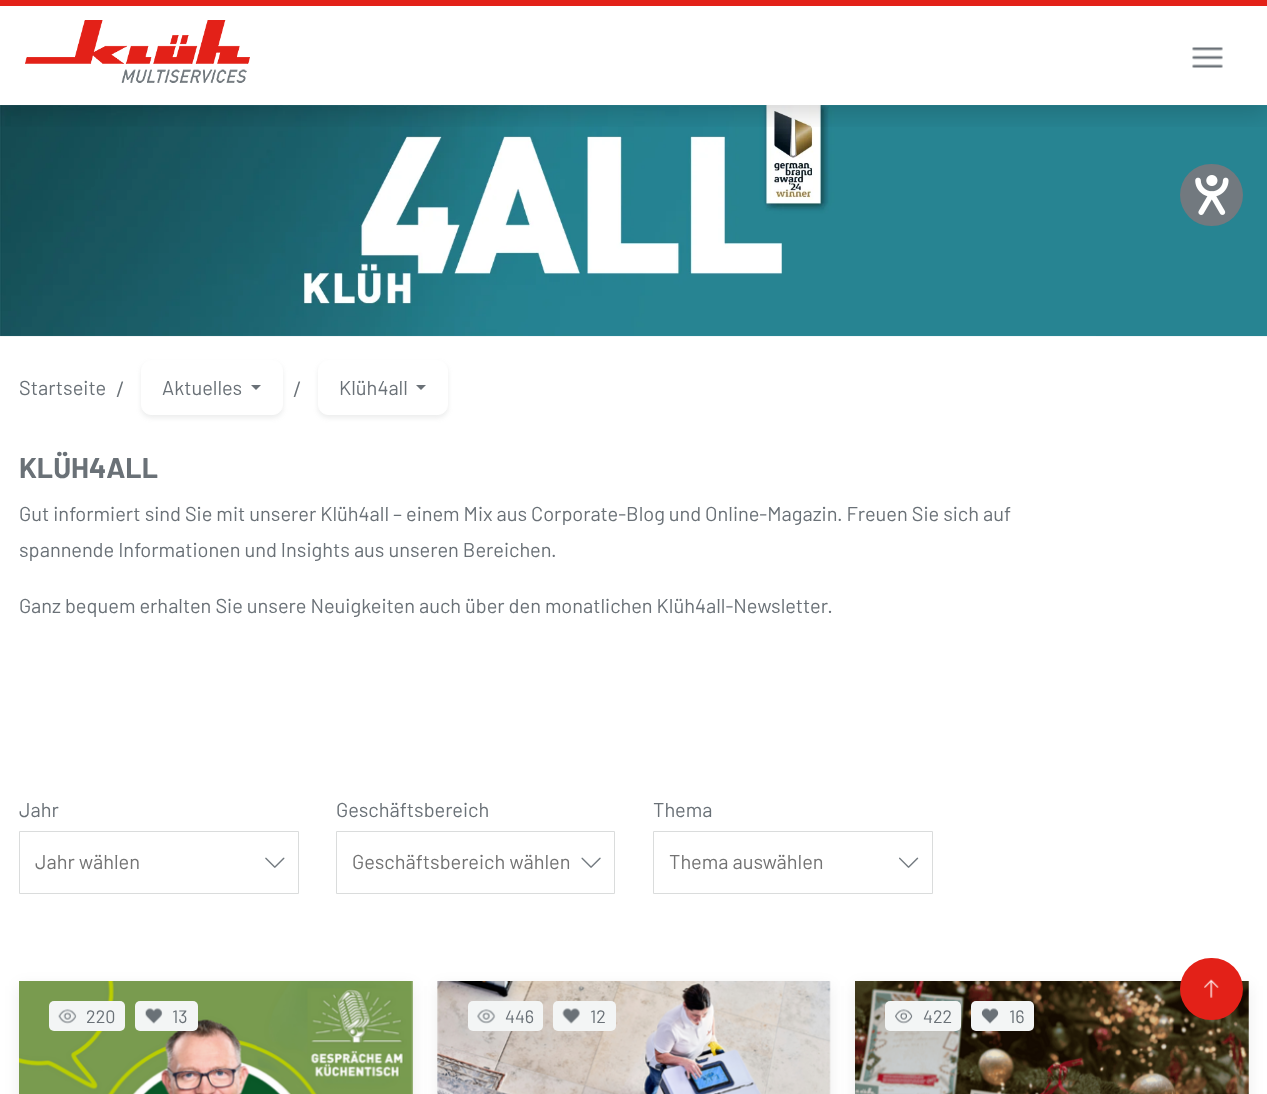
<svg xmlns="http://www.w3.org/2000/svg" width="1267" height="1094" viewBox="0 0 1267 1094">
  <defs>
    <clipPath id="clip1"><path d="M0 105h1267v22H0z"/></clipPath>
  </defs>
  <rect width="100%" height="100%" fill="#fff"/>
  <image x="0" y="105" width="1267" height="232" href="img/4.png"/>
  <rect x="1180" y="164" width="63" height="62" rx="31" fill="#72797f"/>
  <image x="1195" y="175" width="34" height="40" href="img/1.png"/>
  <g clip-path="url(#clip1)">
    <path d="M0 8h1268v105H0z" fill="#00000029" filter="blur(12.5px)"/>
  </g>
  <path d="M0 0h1267v6H0z" fill="#e32118"/>
  <image x="25" y="20" width="225" height="63" href="img/2.png"/>
  <image x="1192" y="47" width="31" height="21" href="img/3.png"/>
  <rect x="141" y="363" width="142" height="55" rx="10" fill="#81838326" filter="blur(2.5px)"/>
  <rect x="141.5" y="360.5" width="141" height="54" rx="9.5" fill="#fff" stroke="#fff"/>
  <path d="M251 385H261L256 390Z" fill="#6a7177"/>
  <rect x="318" y="363" width="130" height="55" rx="10" fill="#81838326" filter="blur(2.5px)"/>
  <rect x="318.5" y="360.5" width="129" height="54" rx="9.5" fill="#fff" stroke="#fff"/>
  <path d="M416 385H426L421 390Z" fill="#6a7177"/>
  <image x="265" y="857" width="20" height="11" href="img/5.png"/>
  <path d="M19.5 831.5h279v62H19.5z" fill="none" stroke="#dadcdc"/>
  <image x="581" y="857" width="20" height="11" href="img/6.png"/>
  <path d="M336.5 831.5h278v62H336.5z" fill="none" stroke="#dadcdc"/>
  <image x="899" y="857" width="20" height="11" href="img/7.png"/>
  <path d="M653.5 831.5h279v62H653.5z" fill="none" stroke="#dadcdc"/>
  <path d="M19 986h394v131H19z" fill="#00000014" filter="blur(7.5px)"/>
  <image x="19" y="981" width="394" height="113" href="img/8.png"/>
  <rect x="49" y="1001" width="76" height="30" rx="5" fill="#f3f5f5"/>
  <image x="58" y="1009" width="19" height="15" href="img/9.png"/>
  <rect x="135" y="1001" width="63" height="30" rx="5" fill="#f3f5f5"/>
  <image x="145" y="1008" width="18" height="16" href="img/10.png"/>
  <path d="M438 986h392v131H438z" fill="#00000014" filter="blur(7.5px)"/>
  <image x="437" y="981" width="394" height="113" href="img/11.png"/>
  <rect x="468" y="1001" width="75" height="30" rx="5" fill="#f3f5f5"/>
  <image x="477" y="1009" width="19" height="15" href="img/12.png"/>
  <rect x="553" y="1001" width="63" height="30" rx="5" fill="#f3f5f5"/>
  <image x="562" y="1008" width="18" height="16" href="img/13.png"/>
  <path d="M855 986h394v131H855z" fill="#00000014" filter="blur(7.5px)"/>
  <image x="855" y="981" width="394" height="113" href="img/14.png"/>
  <rect x="885" y="1001" width="76" height="30" rx="5" fill="#f3f5f5"/>
  <image x="895" y="1009" width="18" height="15" href="img/15.png"/>
  <rect x="971" y="1001" width="63" height="30" rx="5" fill="#f3f5f5"/>
  <image x="981" y="1008" width="18" height="16" href="img/16.png"/>
  <rect x="1180" y="958" width="63" height="62" rx="31" fill="#e32118"/>
  <image x="1204" y="979" width="15" height="19" href="img/17.png"/>
  <text x="19" y="395" font-family="Barlow" font-size="20" fill="#6a7177">Startseite</text>
  <text x="116" y="397" font-family="Barlow" font-size="22" fill="#6a7177">/</text>
  <text x="162" y="395" font-family="Barlow" font-size="20" fill="#6a7177">Aktuelles</text>
  <text x="293" y="397" font-family="Barlow" font-size="22" fill="#6a7177">/</text>
  <text x="339" y="395" font-family="Barlow" font-size="20" fill="#6a7177">Klüh4all</text>
  <text x="19" y="478" font-family="Barlow" font-size="28.5" font-weight="bold" fill="#6a7177">KLÜH4ALL</text>
  <g font-family="Barlow" font-size="20" fill="#6a7177">
    <text x="19" y="521">Gut informiert sind Sie mit unserer Klüh4all – einem Mix aus Corporate-Blog und Online-Magazin. Freuen Sie sich auf</text>
    <text x="19" y="557">spannende Informationen und Insights aus unseren Bereichen.</text>
    <text x="19" y="613">Ganz bequem erhalten Sie unsere Neuigkeiten auch über den monatlichen Klüh4all-Newsletter.</text>
    <text x="19" y="817">Jahr</text>
  </g>
  <text x="35" y="869" font-family="Barlow" font-size="20" fill="#737373">Jahr wählen</text>
  <text x="336" y="817" font-family="Barlow" font-size="20" fill="#6a7177">Geschäftsbereich</text>
  <text x="352" y="869" font-family="Barlow" font-size="20" fill="#737373">Geschäftsbereich wählen</text>
  <text x="653" y="817" font-family="Barlow" font-size="20" fill="#6a7177">Thema</text>
  <text x="669" y="869" font-family="Barlow" font-size="20" fill="#737373">Thema auswählen</text>
  <g font-family="Barlow" font-size="18" fill="#6a7177">
    <text x="86" y="1023">220</text>
    <text x="172" y="1023">13</text>
    <text x="505" y="1023">446</text>
    <text x="590" y="1023">12</text>
    <text x="923" y="1023">422</text>
    <text x="1009" y="1023">16</text>
  </g>
</svg>
